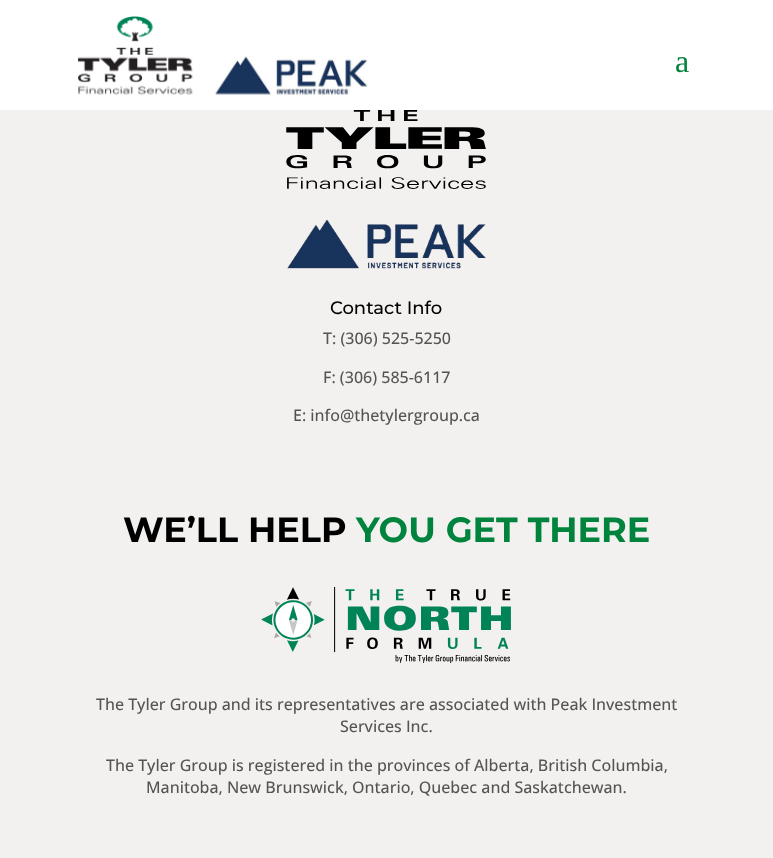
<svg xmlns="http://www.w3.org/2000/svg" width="773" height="858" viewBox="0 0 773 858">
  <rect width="100%" height="100%" fill="#f3f1ef"/>
  <path d="M0 0h773v110H0z" fill="#fff"/>
  <image x="78" y="16" width="290" height="79" href="img/1.png"/>
  <image x="286" y="110" width="200" height="79" href="img/2.png"/>
  <image x="287" y="219" width="199" height="50" href="img/3.png"/>
  <image x="261" y="587" width="250" height="76" href="img/4.png"/>
  <text x="675" y="72" font-family="Liberation Serif" font-size="32" fill="#00843d">a</text>
  <text x="330" y="314" font-family="Montserrat" font-size="18" font-weight="100" fill="#000">Contact Info</text>
  <g font-family="Open Sans" font-size="16" font-weight="500" fill="#555454">
    <text x="323" y="344">T: (306) 525-5250</text>
    <text x="323" y="383">F: (306) 585-6117</text>
    <text x="293" y="421">E: info@thetylergroup.ca</text>
  </g>
  <text x="123" y="542" font-family="'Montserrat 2'" font-size="35" font-weight="100" fill="#000">WE’LL HELP</text>
  <text x="356" y="542" font-family="'Montserrat 2'" font-size="35" font-weight="100" fill="#00843d">YOU GET THERE</text>
  <g font-family="Open Sans" font-size="16" font-weight="500" fill="#555454">
    <text x="96" y="710">The Tyler Group and its representatives are associated with Peak Investment</text>
    <text x="340" y="732">Services Inc.</text>
    <text x="106" y="771">The Tyler Group is registered in the provinces of Alberta, British Columbia,</text>
    <text x="146" y="793">Manitoba, New Brunswick, Ontario, Quebec and Saskatchewan.</text>
  </g>
</svg>
